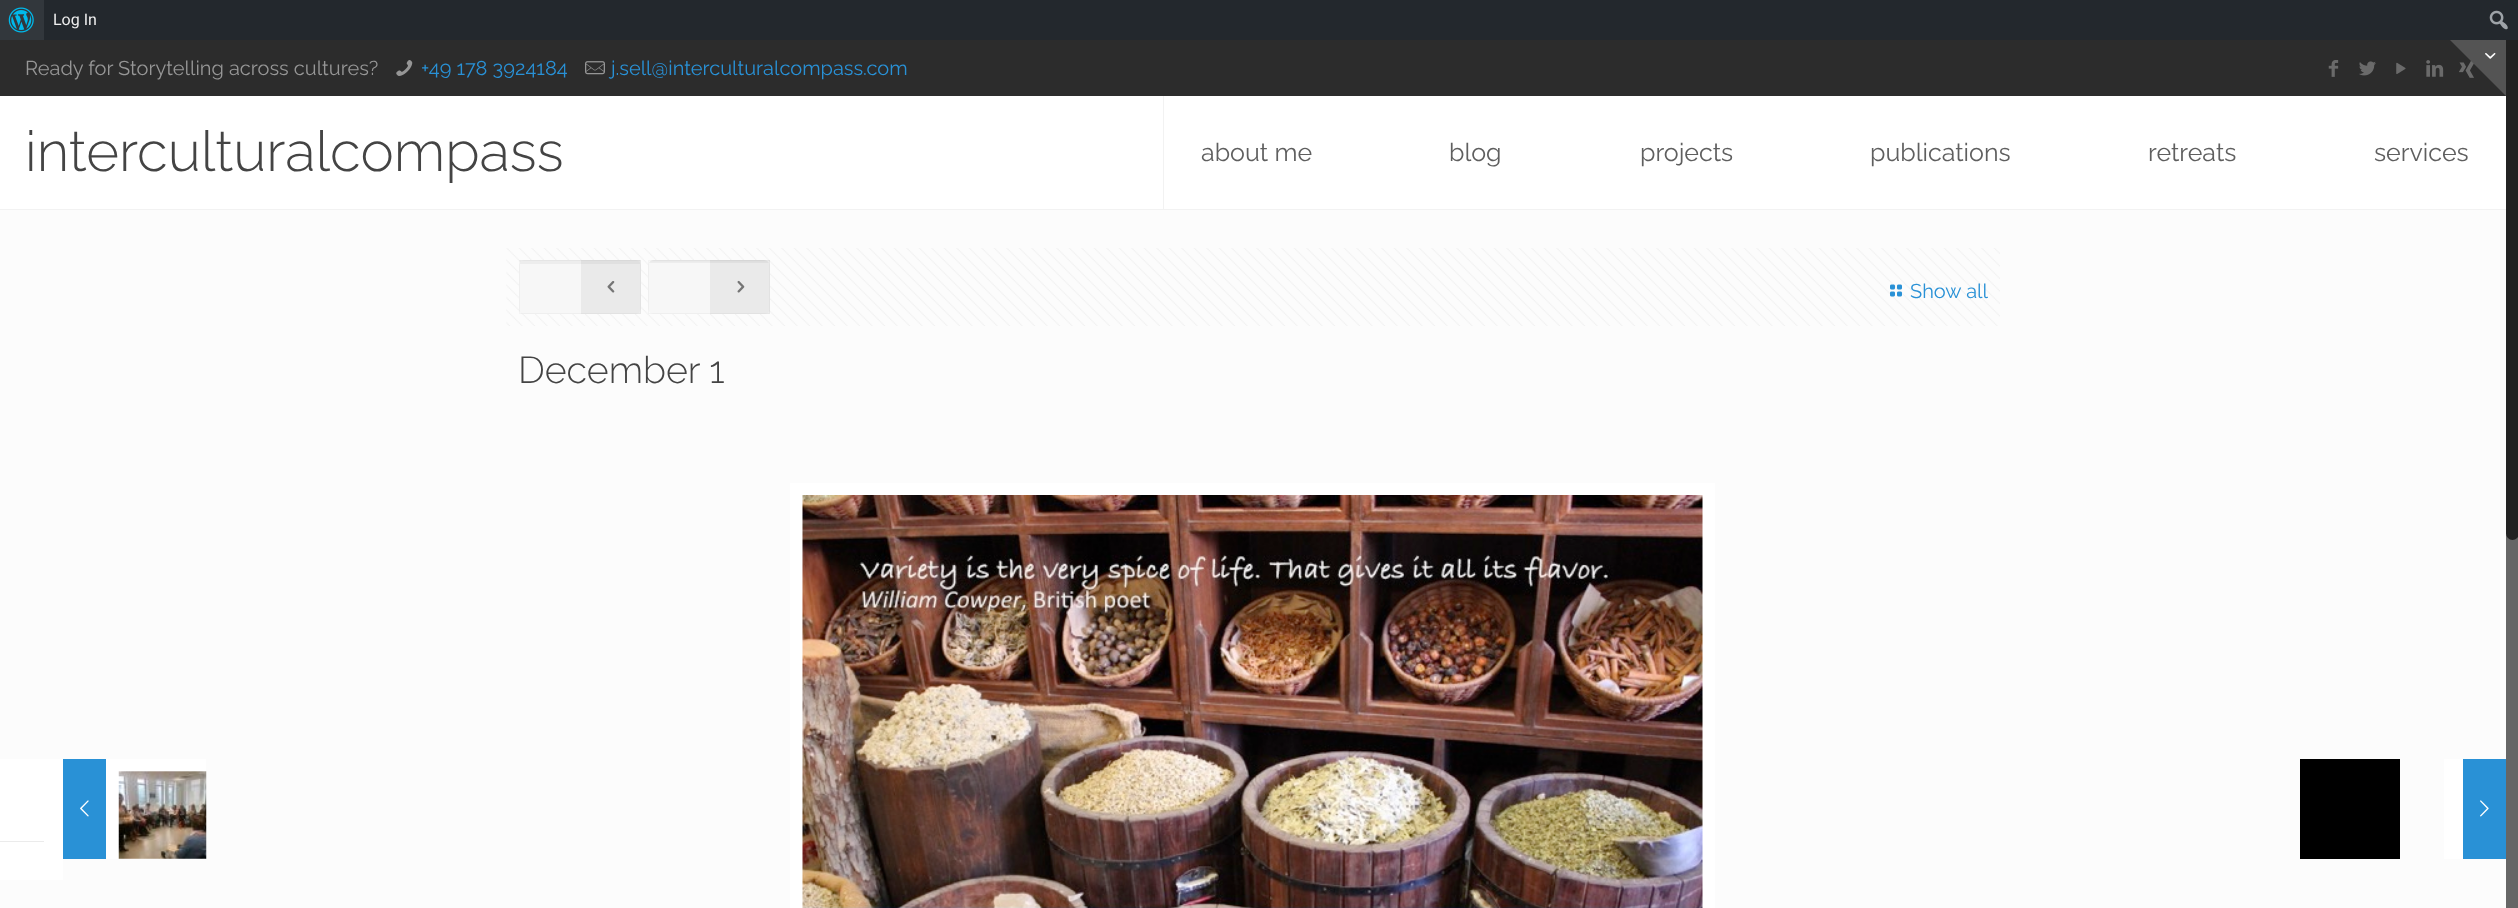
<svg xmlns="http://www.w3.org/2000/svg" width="2518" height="908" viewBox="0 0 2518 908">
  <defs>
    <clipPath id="clip1"><path d="M106 759h100v100H106z"/></clipPath>
  </defs>
  <rect width="100%" height="100%" fill="#fcfcfc"/>
  <path d="M2506 533h12v375H2506z" fill="#666"/>
  <rect x="2506" width="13" height="540" rx="6.5" fill="#222"/>
  <path d="M44 0h2474v40H44z" fill="#23282d"/>
  <path d="M0 0h44v40H0z" fill="#32373c"/>
  <image x="8" y="7" width="26" height="26" href="img/1.png"/>
  <image x="2489" y="10" width="19" height="20" href="img/2.png"/>
  <path d="M0 40h2506v56H0z" fill="#2c2c2c"/>
  <image x="396" y="60" width="17" height="16" href="img/3.png"/>
  <image x="585" y="61" width="20" height="14" href="img/4.png"/>
  <image x="2328" y="60" width="11" height="17" href="img/5.png"/>
  <image x="2359" y="61" width="17" height="15" href="img/6.png"/>
  <image x="2396" y="62" width="10" height="12" href="img/7.png"/>
  <image x="2426" y="60" width="18" height="17" href="img/8.png"/>
  <image x="2459" y="61" width="15" height="17" href="img/9.png"/>
  <path d="M0 96h2506v113H0z" fill="#fff"/>
  <path d="M0 209h2506v1H0z" fill="#f2f2f2"/>
  <path d="M1163 96h1v113H1163z" fill="#f2f2f2"/>
  <image x="506" y="248" width="1494" height="78" href="img/10.png"/>
  <rect x="519" y="260" width="122" height="54" rx="6" fill="#f7f7f7"/>
  <path d="M520 260h120v4H520z" fill="#0000000a"/>
  <path d="M519.5 260.5h121v53H519.5z" fill="none" stroke="#00000008"/>
  <path d="M581 260h60v54H581z" fill="#0000000d"/>
  <image x="607" y="281" width="8" height="12" href="img/11.png"/>
  <rect x="648" y="260" width="122" height="54" rx="6" fill="#f7f7f7"/>
  <image x="649" y="260" width="120" height="3" href="img/12.png"/>
  <path d="M648.5 260.5h121v53H648.5z" fill="none" stroke="#00000008"/>
  <path d="M710 260h60v54H710z" fill="#0000000d"/>
  <image x="737" y="280" width="8" height="13" href="img/13.png"/>
  <image x="1890" y="284" width="12" height="13" href="img/14.png"/>
  <path d="M796.5 489.5h912v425H796.5z" fill="none" stroke="#fff" stroke-width="13"/>
  <image x="802" y="495" width="901" height="413" href="img/15.png"/>
  <path d="M2506 40V96L2450 40Z" fill="#545454"/>
  <image x="2485" y="52" width="11" height="7" href="img/16.png"/>
  <path d="M0 759h63v121H0z" fill="#fff"/>
  <path d="M0 841h44v1H0z" fill="#ebebeb"/>
  <path d="M63 759h43v100H63z" fill="#2991d6"/>
  <image x="80" y="800" width="9" height="17" href="img/17.png"/>
  <g clip-path="url(#clip1)">
    <path d="M112.5 765.5h112v112H112.5z" fill="none" stroke="#fff" stroke-width="13"/>
  </g>
  <image x="118" y="771" width="89" height="88" href="img/18.png"/>
  <path d="M2300 759h100v100H2300z" fill="#000"/>
  <path d="M2444 759h19v100H2444z" fill="#fff"/>
  <path d="M2463 759h43v100H2463z" fill="#2991d6"/>
  <image x="2480" y="800" width="9" height="17" href="img/19.png"/>
  <text x="53" y="25" font-family="Roboto" font-size="16" fill="#eee">Log In</text>
  <text x="25" y="75" font-family="Raleway" font-size="20" fill="#969696">Ready for Storytelling across cultures?</text>
  <g font-family="Raleway" font-size="20" fill="#2991d6">
    <text x="421" y="75">+49 178 3924184</text>
    <text x="611" y="75">j.sell@interculturalcompass.com</text>
  </g>
  <text x="25" y="171" font-family="Raleway" font-size="56.25" font-weight="300" fill="#444">interculturalcompass</text>
  <g font-family="Raleway" font-size="25" fill="#5f5f5f">
    <text x="1201" y="161">about me</text>
    <text x="1449" y="161">blog</text>
    <text x="1640" y="161">projects</text>
    <text x="1870" y="161">publications</text>
    <text x="2148" y="161">retreats</text>
    <text x="2374" y="161">services</text>
  </g>
  <text x="1910" y="298" font-family="Raleway" font-size="20" fill="#2991d6">Show all</text>
  <text x="518" y="383" font-family="Raleway" font-size="37.5" font-weight="300" fill="#444">December 1</text>
</svg>
